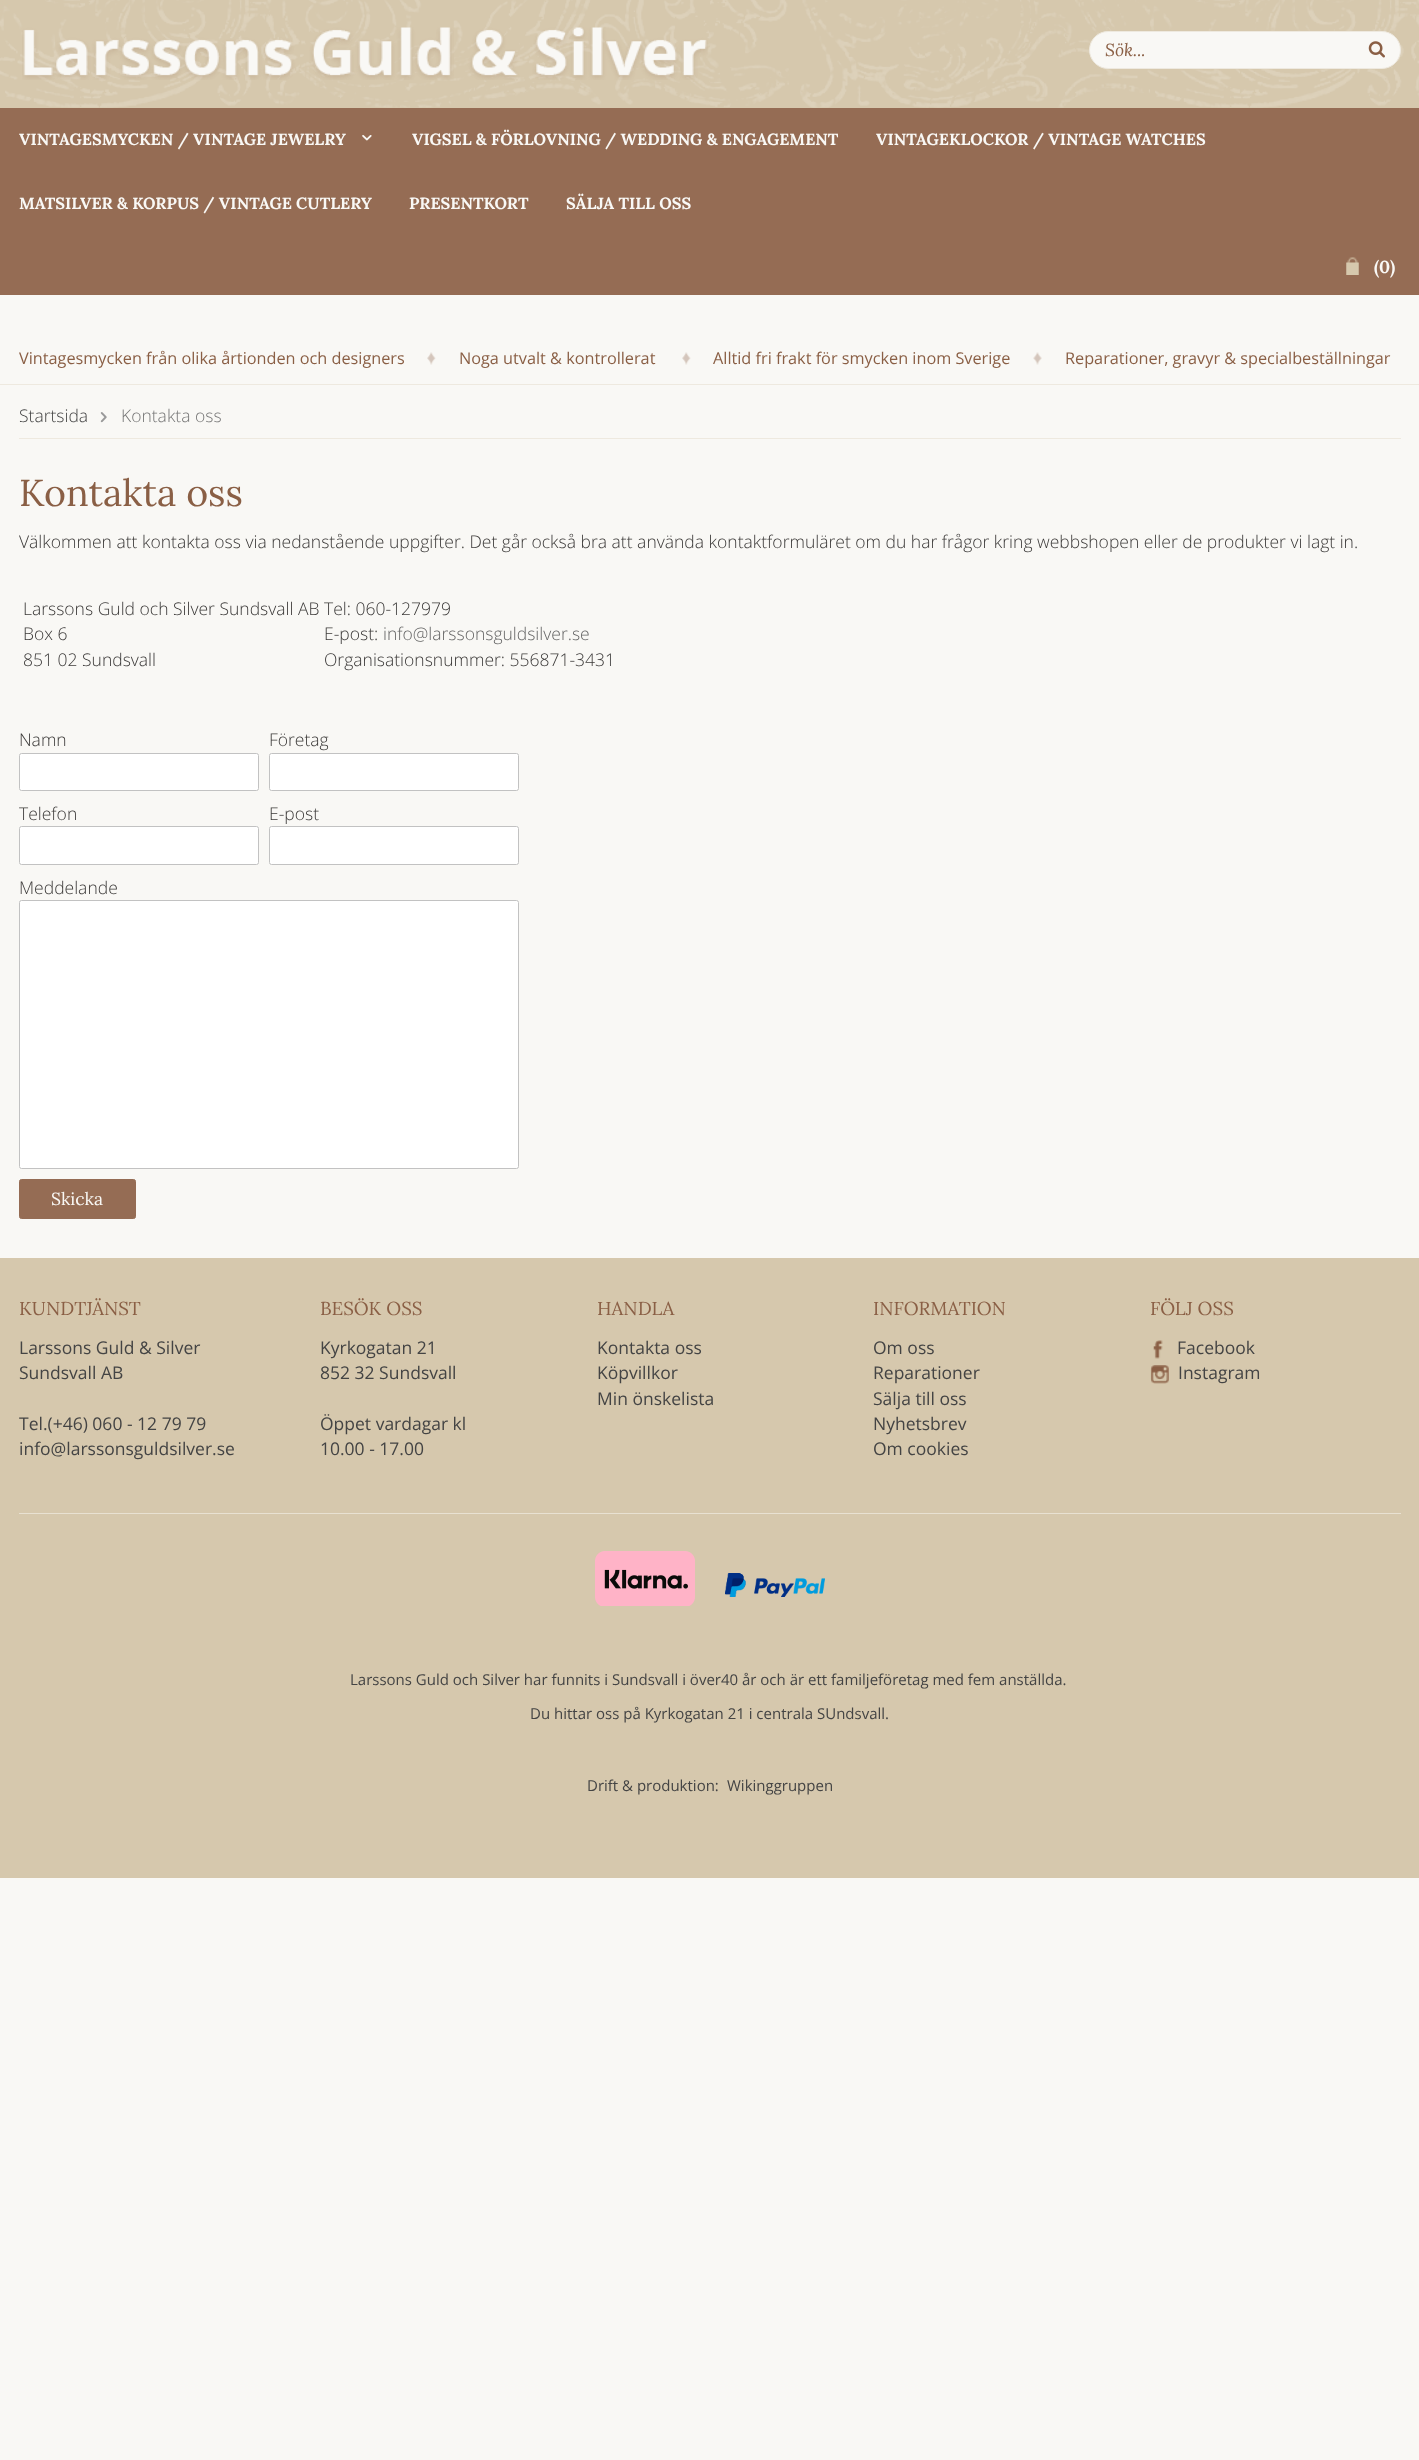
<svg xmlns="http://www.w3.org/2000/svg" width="1419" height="2460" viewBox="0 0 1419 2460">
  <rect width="100%" height="100%" fill="#f9f8f5"/>
  <path d="M0 107h1419v1H0z" fill="#d6c8ad"/>
  <image x="0" y="0" width="1419" height="108" href="img/1.png"/>
  <image x="22" y="27" width="686" height="53" href="img/2.png"/>
  <rect x="1089.5" y="31.5" width="311" height="37" rx="18.5" fill="#f9f8f5" stroke="#eee9df"/>
  <image x="1368" y="41" width="17" height="17" href="img/3.png"/>
  <path d="M0 108h1419v187H0z" fill="#956c54"/>
  <image x="362" y="135" width="10" height="6" href="img/4.png"/>
  <image x="1346" y="257" width="13" height="18" href="img/5.png"/>
  <path d="M0 384h1419v1H0z" fill="#eee9df"/>
  <image x="427" y="352" width="9" height="13" href="img/6.png"/>
  <image x="682" y="352" width="9" height="13" href="img/6.png"/>
  <image x="1033" y="352" width="9" height="13" href="img/7.png"/>
  <path d="M19 438h1382v1H19z" fill="#eee9df"/>
  <image x="100" y="412" width="7" height="11" href="img/8.png"/>
  <rect x="19.5" y="753.5" width="239" height="37" rx="2" fill="#fff" stroke="#c2c2c2"/>
  <rect x="269.5" y="753.5" width="249" height="37" rx="2" fill="#fff" stroke="#c2c2c2"/>
  <rect x="19.5" y="826.5" width="239" height="38" rx="2" fill="#fff" stroke="#c2c2c2"/>
  <rect x="269.5" y="826.5" width="249" height="38" rx="2" fill="#fff" stroke="#c2c2c2"/>
  <rect x="19.5" y="900.5" width="499" height="268" rx="2" fill="#fff" stroke="#c2c2c2"/>
  <rect x="19.5" y="1179.5" width="116" height="39" rx="2" fill="#956c54" stroke="#956c54"/>
  <path d="M0 1258h1419v620H0z" fill="#d6c8ad"/>
  <image x="1153" y="1340" width="10" height="19" href="img/9.png"/>
  <image x="1150" y="1365" width="19" height="19" href="img/10.png"/>
  <path d="M19 1513h1382v1H19z" fill="#e8e1d2"/>
  <image x="595" y="1551" width="100" height="55" href="img/11.png"/>
  <image x="725" y="1573" width="100" height="24" href="img/12.png"/>
  <text x="1105" y="56" font-family="Lora" font-size="17.5" font-style="italic" fill="#8a5f45">Sök...</text>
  <g font-family="Lora" font-size="16.25" font-weight="bold" fill="#f9f8f5">
    <text x="19" y="145">VINTAGESMYCKEN / VINTAGE JEWELRY</text>
    <text x="412" y="145">VIGSEL &amp; FÖRLOVNING / WEDDING &amp; ENGAGEMENT</text>
    <text x="876" y="145">VINTAGEKLOCKOR / VINTAGE WATCHES</text>
    <text x="19" y="209">MATSILVER &amp; KORPUS / VINTAGE CUTLERY</text>
    <text x="409" y="209">PRESENTKORT</text>
    <text x="566" y="209">SÄLJA TILL OSS</text>
  </g>
  <g font-family="Lora" font-size="17.5" font-weight="bold" fill="#f9f8f5">
    <text x="1374" y="273">(</text>
    <text x="1379" y="273">0</text>
    <text x="1390" y="273">)</text>
  </g>
  <g font-family="Open Sans" font-size="16.25" fill="#8a5f45">
    <text x="19" y="364">Vintagesmycken från olika årtionden och designers</text>
    <text x="459" y="364">Noga utvalt &amp; kontrollerat</text>
    <text x="713" y="364">Alltid fri frakt för smycken inom Sverige</text>
    <text x="1065" y="364">Reparationer, gravyr &amp; specialbeställningar</text>
  </g>
  <text x="19" y="422" font-family="Open Sans" font-size="17.5" font-weight="300" fill="#444">Startsida</text>
  <text x="121" y="422" font-family="Open Sans" font-size="17.5" font-weight="300" fill="#777">Kontakta oss</text>
  <text x="19" y="506" font-family="Lora" font-size="37.5" fill="#8a5f45">Kontakta oss</text>
  <g font-family="Open Sans" font-size="17.5" font-weight="300" fill="#3c3a39">
    <text x="19" y="548">Välkommen att kontakta oss via nedanstående uppgifter. Det går också bra att använda kontaktformuläret om du har frågor kring webbshopen eller de produkter vi lagt in.</text>
    <text x="23" y="615">Larssons Guld och Silver Sundsvall AB</text>
    <text x="23" y="640">Box 6</text>
    <text x="23" y="666">851 02 Sundsvall</text>
    <text x="324" y="615">Tel: 060-127979</text>
    <text x="324" y="640">E-post:</text>
  </g>
  <text x="383" y="640" font-family="Open Sans" font-size="17.5" font-weight="300" fill="#666">info@larssonsguldsilver.se</text>
  <g font-family="Open Sans" font-size="17.5" font-weight="300" fill="#3c3a39">
    <text x="324" y="666">Organisationsnummer: 556871-3431</text>
    <text x="19" y="746">Namn</text>
    <text x="269" y="746">Företag</text>
    <text x="19" y="820">Telefon</text>
    <text x="269" y="820">E-post</text>
    <text x="19" y="894">Meddelande</text>
  </g>
  <text x="51" y="1205" font-family="Lora" font-size="17.5" fill="#f9f8f5">Skicka</text>
  <text x="19" y="1315" font-family="Lora" font-size="18.75" fill="#8a5f45">KUNDTJÄNST</text>
  <g font-family="Open Sans" font-size="17.5" fill="#444">
    <text x="19" y="1354">Larssons Guld &amp; Silver</text>
    <text x="19" y="1379">Sundsvall AB</text>
    <text x="19" y="1430">Tel.(+46) 060 - 12 79 79</text>
    <text x="19" y="1455">info@larssonsguldsilver.se</text>
  </g>
  <text x="320" y="1315" font-family="Lora" font-size="18.75" fill="#8a5f45">BESÖK OSS</text>
  <g font-family="Open Sans" font-size="17.5" fill="#444">
    <text x="320" y="1354">Kyrkogatan 21</text>
    <text x="320" y="1379">852 32 Sundsvall</text>
    <text x="320" y="1430">Öppet vardagar kl</text>
    <text x="320" y="1455">10.00 - 17.00</text>
  </g>
  <text x="597" y="1315" font-family="Lora" font-size="18.75" fill="#8a5f45">HANDLA</text>
  <g font-family="Open Sans" font-size="17.5" fill="#444">
    <text x="597" y="1354">Kontakta oss</text>
    <text x="597" y="1379">Köpvillkor</text>
    <text x="597" y="1405">Min önskelista</text>
  </g>
  <text x="873" y="1315" font-family="Lora" font-size="18.75" fill="#8a5f45">INFORMATION</text>
  <g font-family="Open Sans" font-size="17.5" fill="#444">
    <text x="873" y="1354">Om oss</text>
    <text x="873" y="1379">Reparationer</text>
    <text x="873" y="1405">Sälja till oss</text>
    <text x="873" y="1430">Nyhetsbrev</text>
    <text x="873" y="1455">Om cookies</text>
  </g>
  <text x="1150" y="1315" font-family="Lora" font-size="18.75" fill="#8a5f45">FÖLJ OSS</text>
  <g font-family="Open Sans" font-size="17.5" fill="#444">
    <text x="1177" y="1354">Facebook</text>
    <text x="1178" y="1379">Instagram</text>
  </g>
  <g font-family="Open Sans" font-size="15" fill="#444">
    <text x="350" y="1685">Larssons Guld och Silver har funnits i Sundsvall i över40 år och är ett familjeföretag med fem anställda.</text>
    <text x="530" y="1719">Du hittar oss på Kyrkogatan 21 i centrala SUndsvall.</text>
    <text x="587" y="1791">Drift &amp; produktion:</text>
    <text x="727" y="1791">Wikinggruppen</text>
  </g>
</svg>
